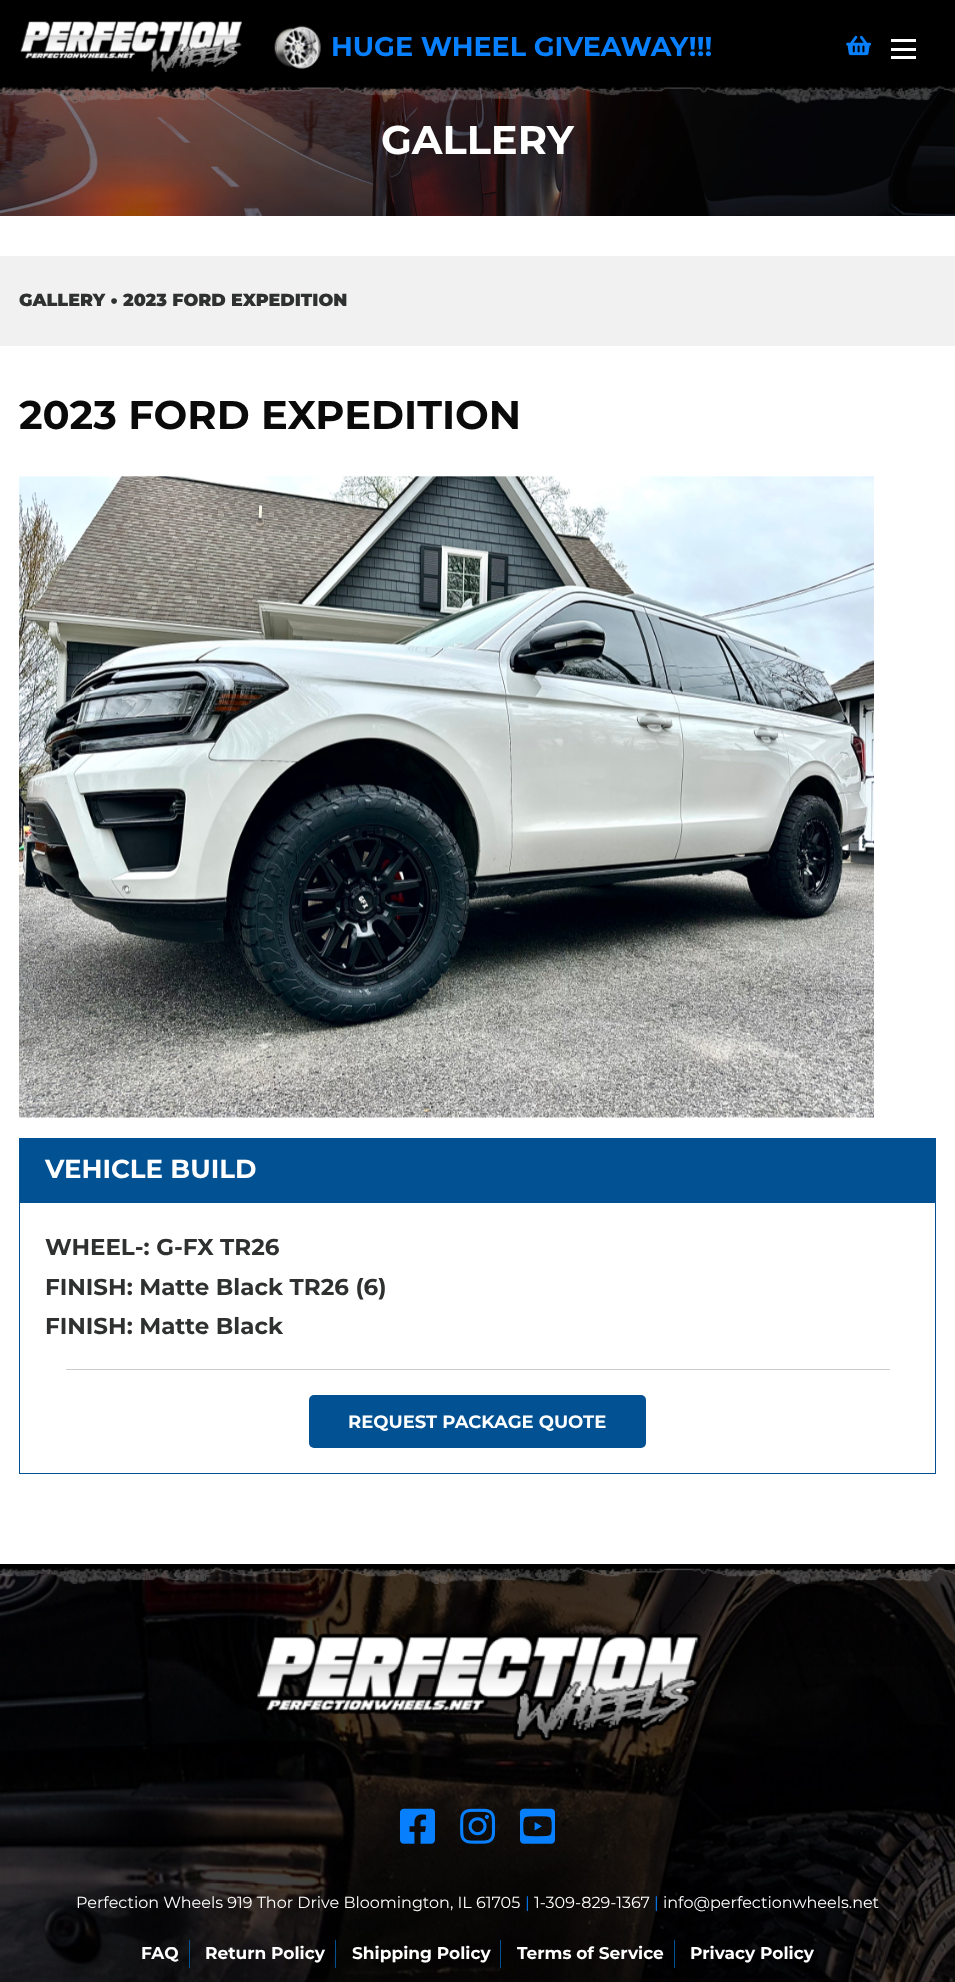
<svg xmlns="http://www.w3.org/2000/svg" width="955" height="1982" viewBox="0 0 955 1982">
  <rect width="100%" height="100%" fill="#fff"/>
  <path d="M0 0h955v84H0z" fill="#000"/>
  <image x="20" y="21" width="222" height="51" href="img/1.png"/>
  <image x="274" y="25" width="47" height="44" href="img/2.png"/>
  <image x="846" y="35" width="25" height="21" href="img/3.png"/>
  <path d="M891 56h25v3H891z" fill="#fff"/>
  <path d="M891 48h25v3H891z" fill="#fff"/>
  <path d="M891 39h25v3H891z" fill="#fff"/>
  <image x="0" y="86" width="955" height="130" href="img/5.png"/>
  <image x="0" y="84" width="955" height="20" href="img/4.png"/>
  <path d="M0 256h955v90H0z" fill="#f0f1f0"/>
  <image x="19" y="476" width="855" height="642" href="img/6.png"/>
  <path d="M19 1138h917v65H19z" fill="#025193"/>
  <path d="M935 1203h1v271H935z" fill="#025193"/>
  <path d="M19 1203h1v167H19z" fill="#025193"/>
  <path d="M66 1369h824v1H66z" fill="#ccc"/>
  <path d="M19 1473h917v1H19z" fill="#025193"/>
  <path d="M19 1370h1v104H19z" fill="#025193"/>
  <rect x="309" y="1395" width="337" height="53" rx="5" fill="#025193"/>
  <image x="0" y="1567" width="955" height="415" href="img/7.png"/>
  <image x="0" y="1564" width="955" height="20" href="img/8.png"/>
  <image x="257" y="1633" width="445" height="109" href="img/9.png"/>
  <image x="400" y="1808" width="35" height="36" href="img/10.png"/>
  <image x="460" y="1808" width="36" height="36" href="img/11.png"/>
  <image x="520" y="1808" width="35" height="36" href="img/12.png"/>
  <path d="M189 1940h1v28H189z" fill="#025193"/>
  <path d="M335 1940h1v28H335z" fill="#025193"/>
  <path d="M500 1940h1v28H500z" fill="#025193"/>
  <path d="M674 1940h1v28H674z" fill="#025193"/>
  <text x="331" y="56" font-family="Montserrat" font-size="27" font-weight="bold" fill="#087ffd">HUGE WHEEL GIVEAWAY!!!</text>
  <text x="381" y="154" font-family="Montserrat" font-size="40" font-weight="bold" fill="#fefefe">GALLERY</text>
  <g font-family="Montserrat" font-size="17.5" font-weight="900" fill="#2e3130">
    <text x="19" y="306">GALLERY •</text>
    <text x="123" y="306">2023 FORD EXPEDITION</text>
  </g>
  <text x="19" y="429" font-family="Montserrat" font-size="40" font-weight="bold" fill="#0a0a0a">2023 FORD EXPEDITION</text>
  <text x="45" y="1178" font-family="Montserrat" font-size="26" font-weight="bold" fill="#fefefe">VEHICLE BUILD</text>
  <g font-family="Montserrat" font-size="23" font-weight="bold" fill="#2e3130">
    <text x="45" y="1255">WHEEL-: G-FX TR26</text>
    <text x="45" y="1295">FINISH: Matte Black TR26 (6)</text>
    <text x="45" y="1334">FINISH: Matte Black</text>
  </g>
  <text x="348" y="1428" font-family="Montserrat" font-size="18" font-weight="bold" fill="#fefefe">REQUEST PACKAGE QUOTE</text>
  <text x="76" y="1908" font-family="Montserrat" font-size="16" fill="#fefefe">Perfection Wheels 919 Thor Drive Bloomington, IL 61705</text>
  <text x="525" y="1908" font-family="Montserrat" font-size="16" fill="#087ffd">|</text>
  <text x="534" y="1908" font-family="Montserrat" font-size="16" fill="#fefefe">1-309-829-1367</text>
  <text x="654" y="1908" font-family="Montserrat" font-size="16" fill="#087ffd">|</text>
  <text x="663" y="1908" font-family="Montserrat" font-size="16" fill="#fefefe">info@perfectionwheels.net</text>
  <g font-family="Montserrat" font-size="17" font-weight="bold" fill="#fefefe">
    <text x="141" y="1959">FAQ</text>
    <text x="205" y="1959">Return Policy</text>
    <text x="352" y="1959">Shipping Policy</text>
    <text x="517" y="1959">Terms of Service</text>
    <text x="690" y="1959">Privacy Policy</text>
  </g>
</svg>
